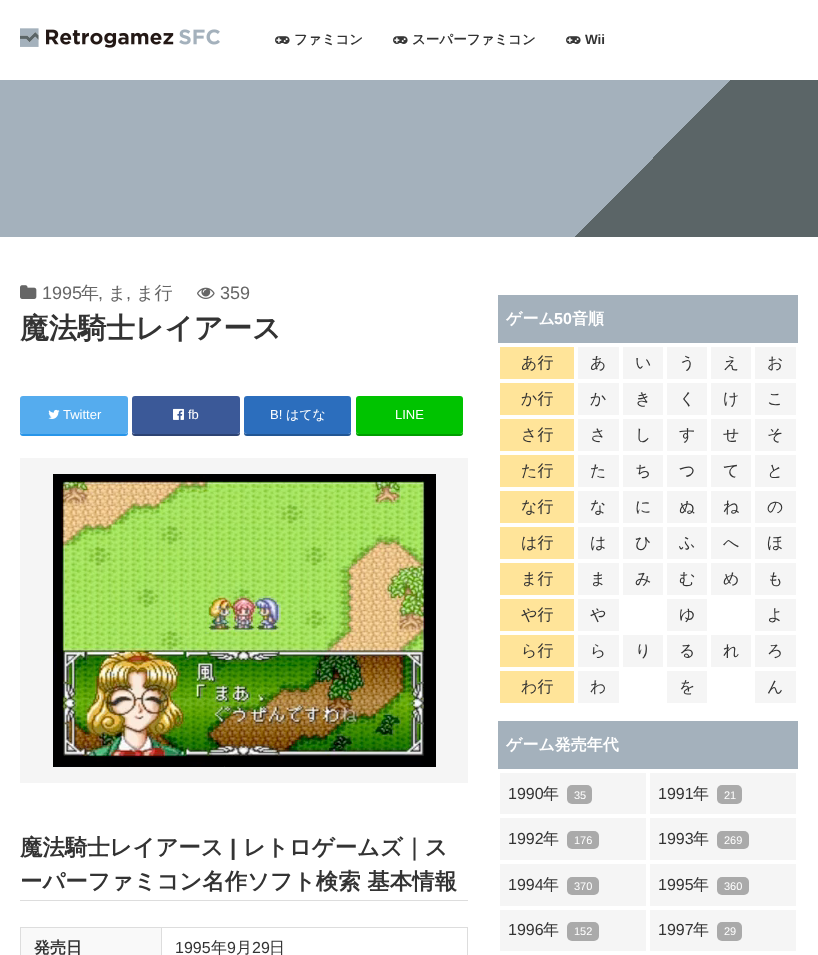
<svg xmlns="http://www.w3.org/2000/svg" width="818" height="955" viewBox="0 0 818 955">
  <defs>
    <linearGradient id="g1" gradientUnits="userSpaceOnUse" x1="165" y1="-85" x2="653" y2="402"><stop offset="0" stop-color="#a4b1bc"/><stop offset="0.75" stop-color="#a4b1bc"/><stop offset="0.75" stop-color="#5b6567"/><stop offset="1" stop-color="#5b6567"/></linearGradient>
  </defs>
  <rect width="100%" height="100%" fill="#fff"/>
  <image x="20" y="28" width="200" height="20" href="img/1.png"/>
  <image x="275" y="36" width="15" height="8" href="img/2.png"/>
  <image x="393" y="36" width="15" height="8" href="img/2.png"/>
  <image x="566" y="36" width="15" height="8" href="img/2.png"/>
  <path d="M0 80h818v157H0z" fill="url(#g1)"/>
  <image x="20" y="285" width="17" height="14" href="img/3.png"/>
  <image x="197" y="287" width="18" height="12" href="img/4.png"/>
  <path d="M20 431V433C20 435 21 436 23 436H125C127 436 128 435 128 433V431C128 433 127 434 125 434H23C21 434 20 433 20 431Z" fill="#2795e9"/>
  <rect x="20" y="396" width="108" height="38" rx="3" fill="#55acee"/>
  <image x="48" y="409" width="12" height="10" href="img/5.png"/>
  <path d="M132 431V433C132 435 133 436 135 436H237C239 436 240 435 240 433V431C240 433 239 434 237 434H135C133 434 132 433 132 431Z" fill="#2d4373"/>
  <rect x="132" y="396" width="108" height="38" rx="3" fill="#3b5998"/>
  <image x="173" y="408" width="11" height="12" href="img/6.png"/>
  <path d="M244 431V433C244 435 245 436 247 436H348C350 436 351 435 351 433V431C351 433 350 434 348 434H247C245 434 244 433 244 431Z" fill="#225694"/>
  <rect x="244" y="396" width="107" height="38" rx="3" fill="#2c6ebd"/>
  <path d="M356 431V433C356 435 357 436 359 436H460C462 436 463 435 463 433V431C463 433 462 434 460 434H359C357 434 356 433 356 431Z" fill="#009d00"/>
  <rect x="356" y="396" width="107" height="38" rx="3" fill="#00c300"/>
  <path d="M20 458h448v325H20z" fill="#f5f5f5"/>
  <image x="53" y="474" width="383" height="293" href="img/7.png"/>
  <path d="M20 900h448v1H20z" fill="#ddd"/>
  <path d="M21 928h140v27H21z" fill="#f9f9f9"/>
  <path d="M161 927h307v1H161z" fill="#ddd"/>
  <path d="M161 927h1v28H161z" fill="#ddd"/>
  <path d="M20 927h142v1H20z" fill="#ddd"/>
  <path d="M20 927h1v28H20z" fill="#ddd"/>
  <path d="M467 927h1v28H467z" fill="#ddd"/>
  <path d="M498 295h300v48H498z" fill="#a4b1bc"/>
  <path d="M500 347h74v32H500z" fill="#ffe499"/>
  <path d="M578 347h41v32H578z" fill="#f5f5f5"/>
  <path d="M623 347h40v32H623z" fill="#f5f5f5"/>
  <path d="M667 347h40v32H667z" fill="#f5f5f5"/>
  <path d="M711 347h40v32H711z" fill="#f5f5f5"/>
  <path d="M755 347h41v32H755z" fill="#f5f5f5"/>
  <path d="M500 383h74v32H500z" fill="#ffe499"/>
  <path d="M578 383h41v32H578z" fill="#f5f5f5"/>
  <path d="M623 383h40v32H623z" fill="#f5f5f5"/>
  <path d="M667 383h40v32H667z" fill="#f5f5f5"/>
  <path d="M711 383h40v32H711z" fill="#f5f5f5"/>
  <path d="M755 383h41v32H755z" fill="#f5f5f5"/>
  <path d="M500 419h74v32H500z" fill="#ffe499"/>
  <path d="M578 419h41v32H578z" fill="#f5f5f5"/>
  <path d="M623 419h40v32H623z" fill="#f5f5f5"/>
  <path d="M667 419h40v32H667z" fill="#f5f5f5"/>
  <path d="M711 419h40v32H711z" fill="#f5f5f5"/>
  <path d="M755 419h41v32H755z" fill="#f5f5f5"/>
  <path d="M500 455h74v32H500z" fill="#ffe499"/>
  <path d="M578 455h41v32H578z" fill="#f5f5f5"/>
  <path d="M623 455h40v32H623z" fill="#f5f5f5"/>
  <path d="M667 455h40v32H667z" fill="#f5f5f5"/>
  <path d="M711 455h40v32H711z" fill="#f5f5f5"/>
  <path d="M755 455h41v32H755z" fill="#f5f5f5"/>
  <path d="M500 491h74v32H500z" fill="#ffe499"/>
  <path d="M578 491h41v32H578z" fill="#f5f5f5"/>
  <path d="M623 491h40v32H623z" fill="#f5f5f5"/>
  <path d="M667 491h40v32H667z" fill="#f5f5f5"/>
  <path d="M711 491h40v32H711z" fill="#f5f5f5"/>
  <path d="M755 491h41v32H755z" fill="#f5f5f5"/>
  <path d="M500 527h74v32H500z" fill="#ffe499"/>
  <path d="M578 527h41v32H578z" fill="#f5f5f5"/>
  <path d="M623 527h40v32H623z" fill="#f5f5f5"/>
  <path d="M667 527h40v32H667z" fill="#f5f5f5"/>
  <path d="M711 527h40v32H711z" fill="#f5f5f5"/>
  <path d="M755 527h41v32H755z" fill="#f5f5f5"/>
  <path d="M500 563h74v32H500z" fill="#ffe499"/>
  <path d="M578 563h41v32H578z" fill="#f5f5f5"/>
  <path d="M623 563h40v32H623z" fill="#f5f5f5"/>
  <path d="M667 563h40v32H667z" fill="#f5f5f5"/>
  <path d="M711 563h40v32H711z" fill="#f5f5f5"/>
  <path d="M755 563h41v32H755z" fill="#f5f5f5"/>
  <path d="M500 599h74v32H500z" fill="#ffe499"/>
  <path d="M578 599h41v32H578z" fill="#f5f5f5"/>
  <path d="M667 599h40v32H667z" fill="#f5f5f5"/>
  <path d="M755 599h41v32H755z" fill="#f5f5f5"/>
  <path d="M500 635h74v32H500z" fill="#ffe499"/>
  <path d="M578 635h41v32H578z" fill="#f5f5f5"/>
  <path d="M623 635h40v32H623z" fill="#f5f5f5"/>
  <path d="M667 635h40v32H667z" fill="#f5f5f5"/>
  <path d="M711 635h40v32H711z" fill="#f5f5f5"/>
  <path d="M755 635h41v32H755z" fill="#f5f5f5"/>
  <path d="M500 671h74v32H500z" fill="#ffe499"/>
  <path d="M578 671h41v32H578z" fill="#f5f5f5"/>
  <path d="M667 671h40v32H667z" fill="#f5f5f5"/>
  <path d="M755 671h41v32H755z" fill="#f5f5f5"/>
  <path d="M498 721h300v48H498z" fill="#a4b1bc"/>
  <path d="M500 773h146v41H500z" fill="#f5f5f5"/>
  <rect x="567" y="785" width="25" height="19" rx="5" fill="#aaa"/>
  <path d="M650 773h146v41H650z" fill="#f5f5f5"/>
  <rect x="717" y="785" width="25" height="19" rx="5" fill="#aaa"/>
  <path d="M500 818h146v42H500z" fill="#f5f5f5"/>
  <rect x="567" y="831" width="32" height="18" rx="5" fill="#aaa"/>
  <path d="M650 818h146v42H650z" fill="#f5f5f5"/>
  <rect x="717" y="831" width="32" height="18" rx="5" fill="#aaa"/>
  <path d="M500 864h146v42H500z" fill="#f5f5f5"/>
  <rect x="567" y="877" width="32" height="18" rx="5" fill="#aaa"/>
  <path d="M650 864h146v42H650z" fill="#f5f5f5"/>
  <rect x="717" y="877" width="32" height="18" rx="5" fill="#aaa"/>
  <path d="M500 910h146v41H500z" fill="#f5f5f5"/>
  <rect x="567" y="922" width="32" height="19" rx="5" fill="#aaa"/>
  <path d="M650 910h146v41H650z" fill="#f5f5f5"/>
  <rect x="717" y="922" width="25" height="19" rx="5" fill="#aaa"/>
  <g font-family="WenQuanYi Zen Hei" font-size="13.5" font-weight="bold" fill="#333">
    <text x="294" y="44">ファミコン</text>
    <text x="412" y="44">スーパーファミコン</text>
  </g>
  <text x="585" y="44" font-family="Liberation Sans" font-size="13.5" font-weight="bold" fill="#333">Wii</text>
  <text x="42" y="299" font-family="Liberation Sans" font-size="18" fill="#666">1995</text>
  <text x="81" y="299" font-family="WenQuanYi Zen Hei" font-size="18" font-weight="500" fill="#666">年</text>
  <text x="98" y="299" font-family="Liberation Sans" font-size="18" fill="#666">,</text>
  <text x="108" y="299" font-family="WenQuanYi Zen Hei" font-size="18" font-weight="500" fill="#666">ま</text>
  <text x="126" y="299" font-family="Liberation Sans" font-size="18" fill="#666">,</text>
  <text x="136" y="299" font-family="WenQuanYi Zen Hei" font-size="18" font-weight="500" fill="#666">ま行</text>
  <text x="220" y="299" font-family="Liberation Sans" font-size="18" fill="#666">359</text>
  <text x="20" y="338" font-family="WenQuanYi Zen Hei" font-size="28.75" font-weight="bold" fill="#333">魔法騎士レイアース</text>
  <g font-family="Liberation Sans" font-size="13" fill="#fff">
    <text x="63" y="419">Twitter</text>
    <text x="188" y="419">fb</text>
    <text x="270" y="419">B!</text>
  </g>
  <text x="286" y="419" font-family="WenQuanYi Zen Hei" font-size="13" font-weight="500" fill="#fff">はてな</text>
  <text x="395" y="419" font-family="Liberation Sans" font-size="13" fill="#fff">LINE</text>
  <text x="20" y="855" font-family="WenQuanYi Zen Hei" font-size="22.4" font-weight="bold" fill="#333">魔法騎士レイアース</text>
  <text x="230" y="855" font-family="Liberation Sans" font-size="22.4" font-weight="bold" fill="#333">|</text>
  <g font-family="WenQuanYi Zen Hei" font-size="22.4" font-weight="bold" fill="#333">
    <text x="243" y="855">レトロゲームズ｜ス</text>
    <text x="20" y="889">ーパーファミコン名作ソフト検索 基本情報</text>
  </g>
  <text x="34" y="953" font-family="WenQuanYi Zen Hei" font-size="16" font-weight="bold" fill="#333">発売日</text>
  <text x="175" y="953" font-family="Liberation Sans" font-size="16" fill="#333">1995</text>
  <text x="211" y="953" font-family="WenQuanYi Zen Hei" font-size="16" font-weight="500" fill="#333">年</text>
  <text x="227" y="953" font-family="Liberation Sans" font-size="16" fill="#333">9</text>
  <text x="236" y="953" font-family="WenQuanYi Zen Hei" font-size="16" font-weight="500" fill="#333">月</text>
  <text x="252" y="953" font-family="Liberation Sans" font-size="16" fill="#333">29</text>
  <text x="269" y="953" font-family="WenQuanYi Zen Hei" font-size="16" font-weight="500" fill="#333">日</text>
  <text x="506" y="324" font-family="WenQuanYi Zen Hei" font-size="16" font-weight="bold" fill="#fff">ゲーム</text>
  <text x="554" y="324" font-family="Liberation Sans" font-size="16" font-weight="bold" fill="#fff">50</text>
  <text x="572" y="324" font-family="WenQuanYi Zen Hei" font-size="16" font-weight="bold" fill="#fff">音順</text>
  <g font-family="WenQuanYi Zen Hei" font-size="16" font-weight="500" fill="#333">
    <text x="521" y="368">あ行</text>
    <text x="590" y="368">あ</text>
    <text x="635" y="368">い</text>
    <text x="679" y="368">う</text>
    <text x="723" y="368">え</text>
    <text x="767" y="368">お</text>
    <text x="521" y="404">か行</text>
    <text x="590" y="404">か</text>
    <text x="635" y="404">き</text>
    <text x="679" y="404">く</text>
    <text x="723" y="404">け</text>
    <text x="767" y="404">こ</text>
    <text x="521" y="440">さ行</text>
    <text x="590" y="440">さ</text>
    <text x="635" y="440">し</text>
    <text x="679" y="440">す</text>
    <text x="723" y="440">せ</text>
    <text x="767" y="440">そ</text>
    <text x="521" y="476">た行</text>
    <text x="590" y="476">た</text>
    <text x="635" y="476">ち</text>
    <text x="679" y="476">つ</text>
    <text x="723" y="476">て</text>
    <text x="767" y="476">と</text>
    <text x="521" y="512">な行</text>
    <text x="590" y="512">な</text>
    <text x="635" y="512">に</text>
    <text x="679" y="512">ぬ</text>
    <text x="723" y="512">ね</text>
    <text x="767" y="512">の</text>
    <text x="521" y="548">は行</text>
    <text x="590" y="548">は</text>
    <text x="635" y="548">ひ</text>
    <text x="679" y="548">ふ</text>
    <text x="723" y="548">へ</text>
    <text x="767" y="548">ほ</text>
    <text x="521" y="584">ま行</text>
    <text x="590" y="584">ま</text>
    <text x="635" y="584">み</text>
    <text x="679" y="584">む</text>
    <text x="723" y="584">め</text>
    <text x="767" y="584">も</text>
    <text x="521" y="620">や行</text>
    <text x="590" y="620">や</text>
    <text x="679" y="620">ゆ</text>
    <text x="767" y="620">よ</text>
    <text x="521" y="656">ら行</text>
    <text x="590" y="656">ら</text>
    <text x="635" y="656">り</text>
    <text x="679" y="656">る</text>
    <text x="723" y="656">れ</text>
    <text x="767" y="656">ろ</text>
    <text x="521" y="692">わ行</text>
    <text x="590" y="692">わ</text>
    <text x="679" y="692">を</text>
    <text x="767" y="692">ん</text>
  </g>
  <text x="506" y="750" font-family="WenQuanYi Zen Hei" font-size="16" font-weight="bold" fill="#fff">ゲーム発売年代</text>
  <text x="508" y="799" font-family="Liberation Sans" font-size="16" fill="#333">1990</text>
  <text x="543" y="799" font-family="WenQuanYi Zen Hei" font-size="16" font-weight="500" fill="#333">年</text>
  <text x="574" y="799" font-family="Liberation Sans" font-size="11" fill="#fff">35</text>
  <text x="658" y="799" font-family="Liberation Sans" font-size="16" fill="#333">1991</text>
  <text x="693" y="799" font-family="WenQuanYi Zen Hei" font-size="16" font-weight="500" fill="#333">年</text>
  <text x="724" y="799" font-family="Liberation Sans" font-size="11" fill="#fff">21</text>
  <text x="508" y="844" font-family="Liberation Sans" font-size="16" fill="#333">1992</text>
  <text x="543" y="844" font-family="WenQuanYi Zen Hei" font-size="16" font-weight="500" fill="#333">年</text>
  <text x="574" y="844" font-family="Liberation Sans" font-size="11" fill="#fff">176</text>
  <text x="658" y="844" font-family="Liberation Sans" font-size="16" fill="#333">1993</text>
  <text x="693" y="844" font-family="WenQuanYi Zen Hei" font-size="16" font-weight="500" fill="#333">年</text>
  <text x="724" y="844" font-family="Liberation Sans" font-size="11" fill="#fff">269</text>
  <text x="508" y="890" font-family="Liberation Sans" font-size="16" fill="#333">1994</text>
  <text x="543" y="890" font-family="WenQuanYi Zen Hei" font-size="16" font-weight="500" fill="#333">年</text>
  <text x="574" y="890" font-family="Liberation Sans" font-size="11" fill="#fff">370</text>
  <text x="658" y="890" font-family="Liberation Sans" font-size="16" fill="#333">1995</text>
  <text x="693" y="890" font-family="WenQuanYi Zen Hei" font-size="16" font-weight="500" fill="#333">年</text>
  <text x="724" y="890" font-family="Liberation Sans" font-size="11" fill="#fff">360</text>
  <text x="508" y="935" font-family="Liberation Sans" font-size="16" fill="#333">1996</text>
  <text x="543" y="935" font-family="WenQuanYi Zen Hei" font-size="16" font-weight="500" fill="#333">年</text>
  <text x="574" y="935" font-family="Liberation Sans" font-size="11" fill="#fff">152</text>
  <text x="658" y="935" font-family="Liberation Sans" font-size="16" fill="#333">1997</text>
  <text x="693" y="935" font-family="WenQuanYi Zen Hei" font-size="16" font-weight="500" fill="#333">年</text>
  <text x="724" y="935" font-family="Liberation Sans" font-size="11" fill="#fff">29</text>
</svg>
